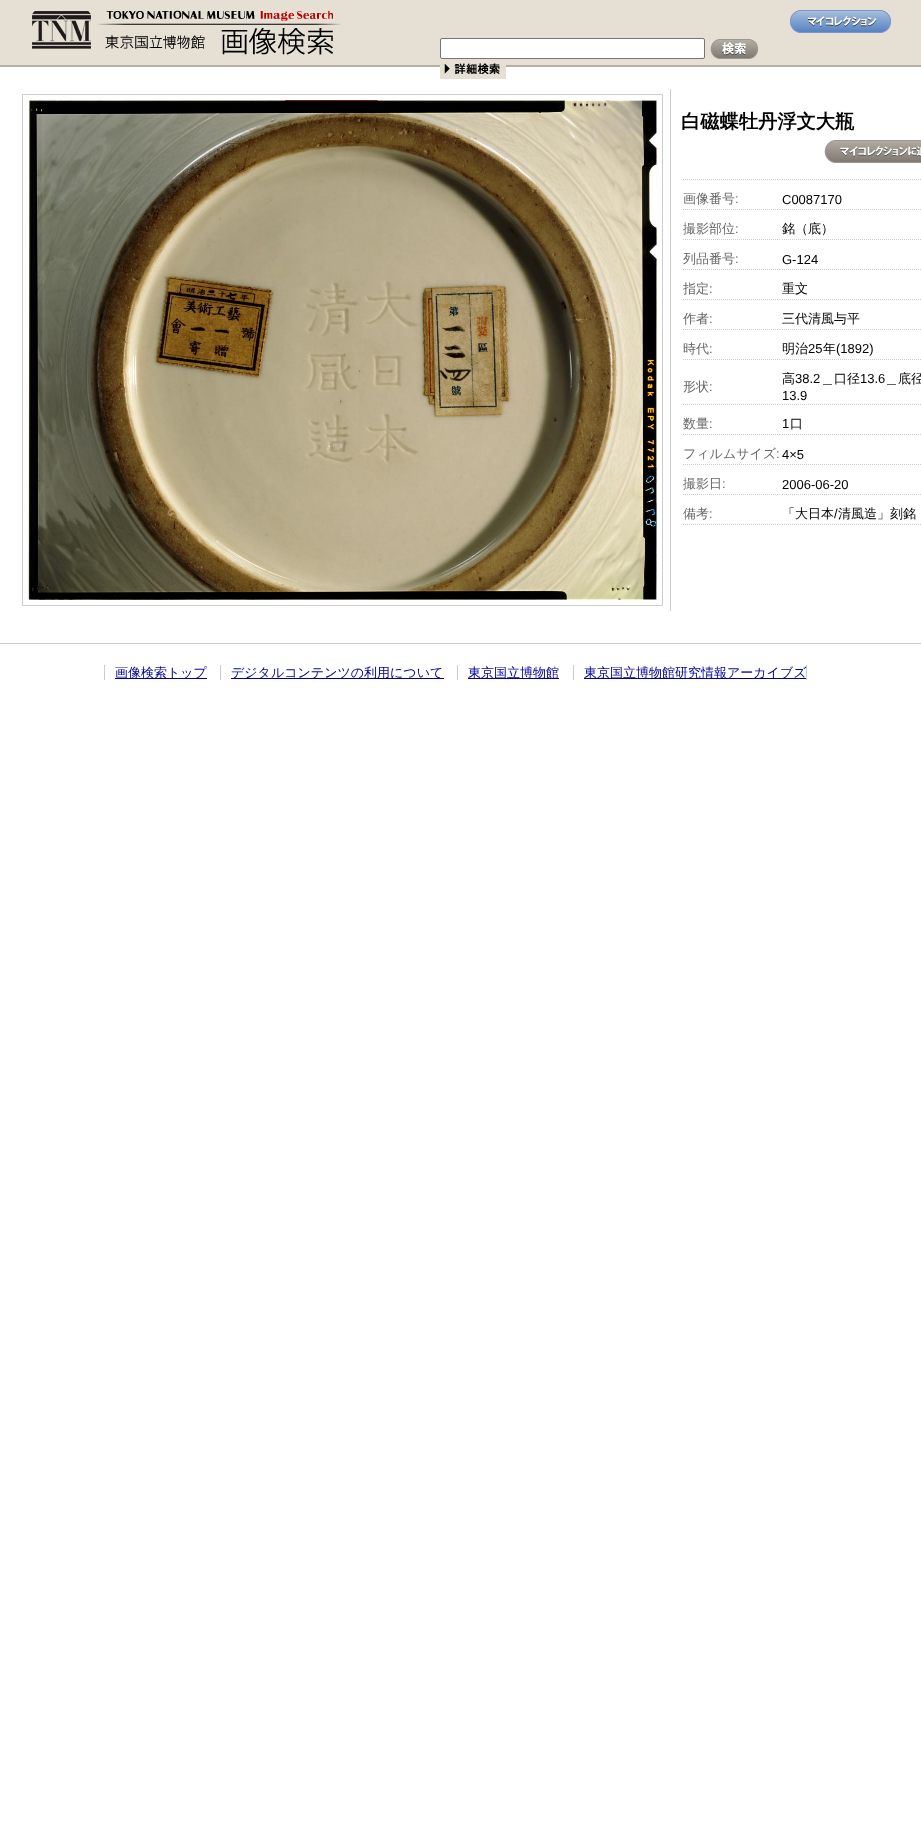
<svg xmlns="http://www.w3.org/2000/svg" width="921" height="1843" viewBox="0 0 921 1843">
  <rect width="100%" height="100%" fill="#fff"/>
  <path d="M0 0h921v65H0z" fill="#e5dfd4"/>
  <path d="M0 65h921v2H0z" fill="#b5afa4"/>
  <image x="32" y="10" width="309" height="45" href="img/1.png"/>
  <rect x="440.5" y="38.5" width="264" height="20" rx="1.5" fill="#fff" stroke="#767676"/>
  <image x="710" y="39" width="49" height="20" href="img/2.png"/>
  <image x="440" y="63" width="66" height="16" href="img/3.png"/>
  <image x="790" y="10" width="101" height="23" href="img/4.png"/>
  <path d="M22.5 94.5h640v511H22.5z" fill="none" stroke="#ccc"/>
  <image x="28" y="100" width="629" height="500" href="img/5.png"/>
  <path d="M670 89h1v522H670z" fill="#ccc"/>
  <image x="824" y="140" width="97" height="23" href="img/6.png"/>
  <path d="M683 179.5H780" fill="none" stroke="#ccc" stroke-dasharray="1 1"/>
  <path d="M782 179.5H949" fill="none" stroke="#ccc" stroke-dasharray="1 1"/>
  <path d="M683 209.5H780" fill="none" stroke="#ccc" stroke-dasharray="1 1"/>
  <path d="M782 209.5H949" fill="none" stroke="#ccc" stroke-dasharray="1 1"/>
  <path d="M683 239.5H780" fill="none" stroke="#ccc" stroke-dasharray="1 1"/>
  <path d="M782 239.5H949" fill="none" stroke="#ccc" stroke-dasharray="1 1"/>
  <path d="M683 269.5H780" fill="none" stroke="#ccc" stroke-dasharray="1 1"/>
  <path d="M782 269.5H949" fill="none" stroke="#ccc" stroke-dasharray="1 1"/>
  <path d="M683 299.5H780" fill="none" stroke="#ccc" stroke-dasharray="1 1"/>
  <path d="M782 299.5H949" fill="none" stroke="#ccc" stroke-dasharray="1 1"/>
  <path d="M683 329.5H780" fill="none" stroke="#ccc" stroke-dasharray="1 1"/>
  <path d="M782 329.5H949" fill="none" stroke="#ccc" stroke-dasharray="1 1"/>
  <path d="M683 359.5H780" fill="none" stroke="#ccc" stroke-dasharray="1 1"/>
  <path d="M782 359.5H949" fill="none" stroke="#ccc" stroke-dasharray="1 1"/>
  <path d="M683 404.5H780" fill="none" stroke="#ccc" stroke-dasharray="1 1"/>
  <path d="M782 404.5H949" fill="none" stroke="#ccc" stroke-dasharray="1 1"/>
  <path d="M683 434.5H780" fill="none" stroke="#ccc" stroke-dasharray="1 1"/>
  <path d="M782 434.5H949" fill="none" stroke="#ccc" stroke-dasharray="1 1"/>
  <path d="M683 464.5H780" fill="none" stroke="#ccc" stroke-dasharray="1 1"/>
  <path d="M782 464.5H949" fill="none" stroke="#ccc" stroke-dasharray="1 1"/>
  <path d="M683 494.5H780" fill="none" stroke="#ccc" stroke-dasharray="1 1"/>
  <path d="M782 494.5H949" fill="none" stroke="#ccc" stroke-dasharray="1 1"/>
  <path d="M683 524.5H780" fill="none" stroke="#ccc" stroke-dasharray="1 1"/>
  <path d="M782 524.5H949" fill="none" stroke="#ccc" stroke-dasharray="1 1"/>
  <path d="M0 643h921v1H0z" fill="#ccc"/>
  <path d="M104 665h1v15H104z" fill="#ccc"/>
  <path d="M115 678h92v1H115z" fill="#009"/>
  <path d="M220 665h1v15H220z" fill="#ccc"/>
  <path d="M231 678h213v1H231z" fill="#009"/>
  <path d="M457 665h1v15H457z" fill="#ccc"/>
  <path d="M468 678h91v1H468z" fill="#009"/>
  <path d="M806 665h1v15H806z" fill="#ccc"/>
  <path d="M573 665h1v15H573z" fill="#ccc"/>
  <path d="M584 678h222v1H584z" fill="#009"/>
  <text x="681" y="128" font-family="WenQuanYi Zen Hei" font-size="19.25" font-weight="bold" fill="#000">白磁蝶牡丹浮文大瓶</text>
  <text x="683" y="203" font-family="WenQuanYi Zen Hei" font-size="13" font-weight="500" fill="#666">画像番号</text>
  <text x="735" y="203" font-family="Liberation Sans" font-size="13" fill="#666">:</text>
  <text x="782" y="204" font-family="Liberation Sans" font-size="13" fill="#000">C0087170</text>
  <text x="683" y="233" font-family="WenQuanYi Zen Hei" font-size="13" font-weight="500" fill="#666">撮影部位</text>
  <text x="735" y="233" font-family="Liberation Sans" font-size="13" fill="#666">:</text>
  <text x="782" y="233" font-family="WenQuanYi Zen Hei" font-size="13" font-weight="500" fill="#000">銘（底）</text>
  <text x="683" y="263" font-family="WenQuanYi Zen Hei" font-size="13" font-weight="500" fill="#666">列品番号</text>
  <text x="735" y="263" font-family="Liberation Sans" font-size="13" fill="#666">:</text>
  <text x="782" y="264" font-family="Liberation Sans" font-size="13" fill="#000">G-124</text>
  <text x="683" y="293" font-family="WenQuanYi Zen Hei" font-size="13" font-weight="500" fill="#666">指定</text>
  <text x="709" y="293" font-family="Liberation Sans" font-size="13" fill="#666">:</text>
  <text x="782" y="293" font-family="WenQuanYi Zen Hei" font-size="13" font-weight="500" fill="#000">重文</text>
  <text x="683" y="323" font-family="WenQuanYi Zen Hei" font-size="13" font-weight="500" fill="#666">作者</text>
  <text x="709" y="323" font-family="Liberation Sans" font-size="13" fill="#666">:</text>
  <text x="782" y="323" font-family="WenQuanYi Zen Hei" font-size="13" font-weight="500" fill="#000">三代清風与平</text>
  <text x="683" y="353" font-family="WenQuanYi Zen Hei" font-size="13" font-weight="500" fill="#666">時代</text>
  <text x="709" y="353" font-family="Liberation Sans" font-size="13" fill="#666">:</text>
  <text x="782" y="353" font-family="WenQuanYi Zen Hei" font-size="13" font-weight="500" fill="#000">明治</text>
  <text x="808" y="353" font-family="Liberation Sans" font-size="13" fill="#000">25</text>
  <text x="823" y="353" font-family="WenQuanYi Zen Hei" font-size="13" font-weight="500" fill="#000">年</text>
  <text x="836" y="353" font-family="Liberation Sans" font-size="13" fill="#000">(1892)</text>
  <text x="683" y="391" font-family="WenQuanYi Zen Hei" font-size="13" font-weight="500" fill="#666">形状</text>
  <text x="709" y="391" font-family="Liberation Sans" font-size="13" fill="#666">:</text>
  <text x="782" y="383" font-family="WenQuanYi Zen Hei" font-size="13" font-weight="500" fill="#000">高</text>
  <text x="795" y="383" font-family="Liberation Sans" font-size="13" fill="#000">38.2</text>
  <text x="821" y="383" font-family="WenQuanYi Zen Hei" font-size="13" font-weight="500" fill="#000">＿口径</text>
  <text x="860" y="383" font-family="Liberation Sans" font-size="13" fill="#000">13.6</text>
  <text x="885" y="383" font-family="WenQuanYi Zen Hei" font-size="13" font-weight="500" fill="#000">＿底径</text>
  <text x="782" y="400" font-family="Liberation Sans" font-size="13" fill="#000">13.9</text>
  <text x="683" y="428" font-family="WenQuanYi Zen Hei" font-size="13" font-weight="500" fill="#666">数量</text>
  <text x="709" y="428" font-family="Liberation Sans" font-size="13" fill="#666">:</text>
  <text x="782" y="428" font-family="Liberation Sans" font-size="13" fill="#000">1</text>
  <text x="790" y="428" font-family="WenQuanYi Zen Hei" font-size="13" font-weight="500" fill="#000">口</text>
  <text x="683" y="458" font-family="WenQuanYi Zen Hei" font-size="13" font-weight="500" fill="#666">フィルムサイズ</text>
  <text x="776" y="458" font-family="Liberation Sans" font-size="13" fill="#666">:</text>
  <text x="782" y="459" font-family="Liberation Sans" font-size="13" fill="#000">4×5</text>
  <text x="683" y="488" font-family="WenQuanYi Zen Hei" font-size="13" font-weight="500" fill="#666">撮影日</text>
  <text x="722" y="488" font-family="Liberation Sans" font-size="13" fill="#666">:</text>
  <text x="782" y="489" font-family="Liberation Sans" font-size="13" fill="#000">2006-06-20</text>
  <text x="683" y="518" font-family="WenQuanYi Zen Hei" font-size="13" font-weight="500" fill="#666">備考</text>
  <text x="709" y="518" font-family="Liberation Sans" font-size="13" fill="#666">:</text>
  <text x="782" y="518" font-family="WenQuanYi Zen Hei" font-size="13" font-weight="500" fill="#000">「大日本 清風造」刻銘</text>
  <text x="834" y="518" font-family="Liberation Sans" font-size="13" fill="#000">/</text>
  <g font-family="WenQuanYi Zen Hei" font-size="13" font-weight="500" fill="#009">
    <text x="115" y="677">画像検索トップ</text>
    <text x="231" y="677">デジタルコンテンツの利用について</text>
    <text x="468" y="677">東京国立博物館</text>
    <text x="584" y="677">東京国立博物館研究情報アーカイブズ</text>
  </g>
</svg>
